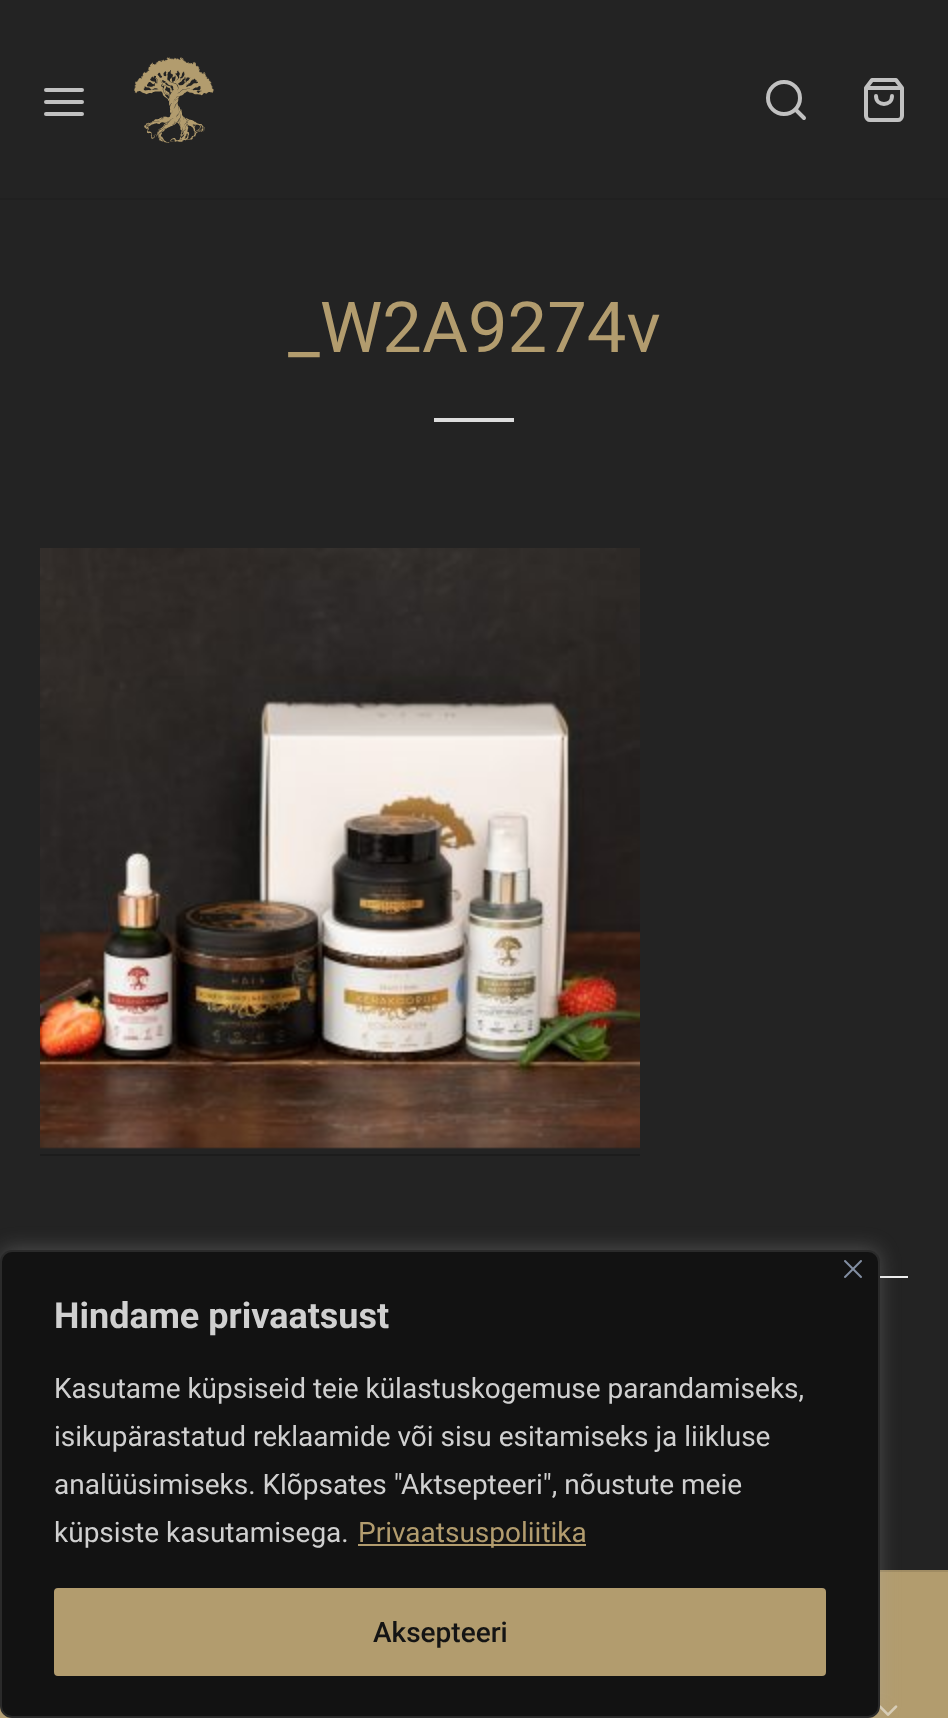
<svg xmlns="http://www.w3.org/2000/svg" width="948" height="1718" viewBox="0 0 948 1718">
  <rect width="100%" height="100%" fill="#232323"/>
  <path d="M46 102H82M46 90H82M46 114H82" fill="none" stroke="#c1c1c1" stroke-width="4" stroke-linecap="round" stroke-linejoin="round"/>
  <image x="134" y="57" width="80" height="86" href="img/1.png"/>
  <circle cx="784" cy="98" r="16" fill="none" stroke="#c1c1c1" stroke-width="4"/>
  <path d="M804 118L795.5 109.5" fill="none" stroke="#c1c1c1" stroke-width="4" stroke-linecap="round" stroke-linejoin="round"/>
  <path d="M872 80L866 88V116C866 118 868 120 870 120H898C900 120 902 118 902 116V88L896 80ZM866 88H902M892 96C892 106.5 876 106.5 876 96" fill="none" stroke="#c1c1c1" stroke-width="4" stroke-linecap="round" stroke-linejoin="round"/>
  <path d="M0 198h948v2H0z" fill="#202020"/>
  <path d="M434 418h80v4H434z" fill="#ddd"/>
  <path d="M40 1154h600v2H40z" fill="#1c1c1c"/>
  <image x="40" y="548" width="600" height="601" href="img/2.png"/>
  <path d="M880 1276h28v2H880z" fill="#eee"/>
  <path d="M0 1572h948v146H0z" fill="#b29c6e"/>
  <path d="M880 1570h68v2H880z" fill="#a08c63"/>
  <image x="879" y="1705" width="19" height="11" href="img/3.png"/>
  <rect y="1248" width="880" height="468" rx="12" fill="#acabab4d" filter="blur(10px)"/>
  <rect x="1" y="1251" width="878" height="466" rx="11" fill="#121212" stroke="#2a2a2a" stroke-width="2"/>
  <image x="844" y="1260" width="18" height="18" href="img/4.png"/>
  <path d="M358 1544h228v2H358z" fill="#b29c6e"/>
  <rect x="56" y="1590" width="768" height="84" rx="2" fill="#b29c6e" stroke="#b29c6e" stroke-width="4"/>
  <text x="288" y="352" font-family="Roboto" font-size="70.5" fill="#b29c6e">_W2A9274v</text>
  <text x="54" y="1328" font-family="Roboto" font-size="36" font-weight="bold" fill="#d0d0d0">Hindame privaatsust</text>
  <g font-family="Roboto" font-size="28" fill="#d0d0d0">
    <text x="54" y="1398">Kasutame küpsiseid teie külastuskogemuse parandamiseks,</text>
    <text x="54" y="1446">isikupärastatud reklaamide või sisu esitamiseks ja liikluse</text>
    <text x="54" y="1494">analüüsimiseks. Klõpsates "Aktsepteeri", nõustute meie</text>
    <text x="54" y="1542">küpsiste kasutamisega.</text>
  </g>
  <text x="358" y="1542" font-family="Roboto" font-size="28" fill="#b29c6e">Privaatsuspoliitika</text>
  <text x="373" y="1642" font-family="Roboto" font-size="28" font-weight="500" fill="#141414">Aksepteeri</text>
</svg>
